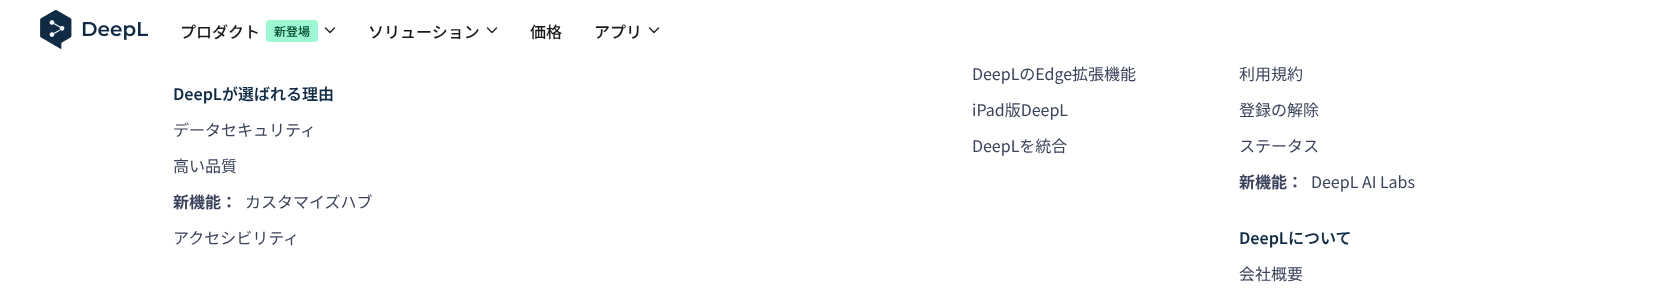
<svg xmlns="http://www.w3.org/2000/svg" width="1666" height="304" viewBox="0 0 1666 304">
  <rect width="100%" height="100%" fill="#fff"/>
  <image x="40" y="10" width="32" height="40" href="img/1.png"/>
  <image x="82" y="22" width="66" height="18" href="img/2.png"/>
  <rect x="266" y="20" width="52" height="22" rx="4" fill="#9cf7d1"/>
  <path d="M334.5 28L330 32.5L325.5 28" fill="none" stroke="#292c32" stroke-width="1.5" stroke-linecap="round" stroke-linejoin="round"/>
  <path d="M496.5 28L492 32.5L487.5 28" fill="none" stroke="#292c32" stroke-width="1.5" stroke-linecap="round" stroke-linejoin="round"/>
  <path d="M658.5 28L654 32.5L649.5 28" fill="none" stroke="#292c32" stroke-width="1.5" stroke-linecap="round" stroke-linejoin="round"/>
  <text x="180" y="38" font-family="Noto Sans JP" font-size="16" font-weight="500" fill="#191919">プロダクト</text>
  <text x="274" y="36" font-family="Noto Sans JP" font-size="12" font-weight="500" fill="#004730">新登場</text>
  <g font-family="Noto Sans JP" font-size="16" font-weight="500" fill="#191919">
    <text x="368" y="38">ソリューション</text>
    <text x="530" y="38">価格</text>
    <text x="594" y="38">アプリ</text>
  </g>
  <text x="173" y="100" font-family="Noto Sans JP" font-size="16" font-weight="600" fill="#0f2b46">DeepLが選ばれる理由</text>
  <g font-family="Noto Sans JP" font-size="16" fill="#3b435c">
    <text x="173" y="136">データセキュリティ</text>
    <text x="173" y="172">高い品質</text>
  </g>
  <text x="173" y="208" font-family="Noto Sans JP" font-size="16" font-weight="bold" fill="#3b435c">新機能：</text>
  <g font-family="Noto Sans JP" font-size="16" fill="#3b435c">
    <text x="245" y="208">カスタマイズハブ</text>
    <text x="173" y="244">アクセシビリティ</text>
    <text x="972" y="80">DeepLのEdge拡張機能</text>
    <text x="972" y="116">iPad版DeepL</text>
    <text x="972" y="152">DeepLを統合</text>
    <text x="1239" y="80">利用規約</text>
    <text x="1239" y="116">登録の解除</text>
    <text x="1239" y="152">ステータス</text>
  </g>
  <text x="1239" y="188" font-family="Noto Sans JP" font-size="16" font-weight="bold" fill="#3b435c">新機能：</text>
  <text x="1311" y="188" font-family="Noto Sans JP" font-size="16" fill="#3b435c">DeepL AI Labs</text>
  <text x="1239" y="244" font-family="Noto Sans JP" font-size="16" font-weight="600" fill="#0f2b46">DeepLについて</text>
  <text x="1239" y="280" font-family="Noto Sans JP" font-size="16" fill="#3b435c">会社概要</text>
</svg>
